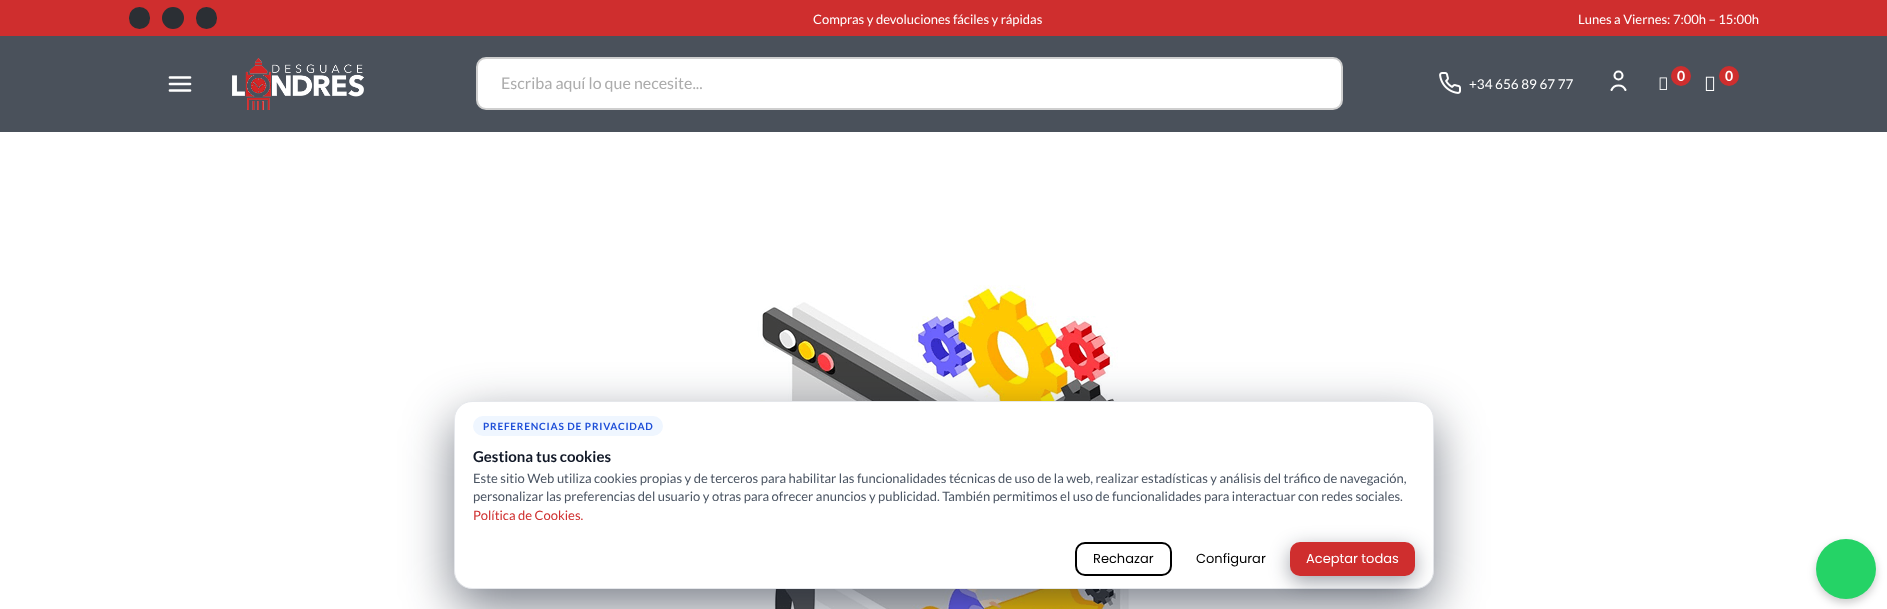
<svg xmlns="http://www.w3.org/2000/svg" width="1887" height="609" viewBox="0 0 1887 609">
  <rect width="100%" height="100%" fill="#fff"/>
  <path d="M0 0h1887v36H0z" fill="#cf2e2e"/>
  <rect x="129" y="7" width="21" height="22" rx="10.5" fill="#2b2f34"/>
  <circle cx="173" cy="18" r="11" fill="#2b2f34"/>
  <rect x="196" y="7" width="21" height="22" rx="10.5" fill="#2b2f34"/>
  <path d="M0 36h1887v96H0z" fill="#4a515b"/>
  <rect x="477" y="58" width="865" height="51" rx="9" fill="#fff" stroke="#cfcfcf" stroke-width="2"/>
  <path d="M170 77.5H190M170 84H190M170 90.5H190" fill="none" stroke="#fff" stroke-width="2.7" stroke-linecap="round" stroke-linejoin="round"/>
  <image x="232" y="58" width="132" height="52" href="img/1.png"/>
  <image x="1439" y="72" width="22" height="22" href="img/2.png"/>
  <circle cx="1618.5" cy="75.5" r="4" fill="none" stroke="#fff" stroke-width="2.1"/>
  <path d="M1611.5 90C1614 84 1623 84 1625.5 90" fill="none" stroke="#fff" stroke-width="2.1" stroke-linecap="round" stroke-linejoin="round"/>
  <image x="1659" y="77" width="8" height="13" href="img/3.png"/>
  <circle cx="1681" cy="76" r="10" fill="#cf2e2e"/>
  <image x="1705" y="76" width="10" height="15" href="img/4.png"/>
  <circle cx="1729" cy="76" r="10" fill="#cf2e2e"/>
  <image x="707" y="285" width="422" height="324" href="img/5.png"/>
  <rect x="454" y="419" width="980" height="188" rx="18" fill="#0f172a8c" filter="blur(25px)"/>
  <rect x="454.5" y="401.5" width="979" height="187" rx="17.5" fill="#fff" stroke="#e5e7eb"/>
  <rect x="473" y="416" width="190" height="20" rx="10" fill="#eff6ff"/>
  <rect x="1076" y="543" width="95" height="32" rx="9" fill="none" stroke="#000" stroke-width="2"/>
  <rect x="1290" y="548" width="125" height="34" rx="10" fill="#0f172a66" filter="blur(10px)"/>
  <rect x="1290" y="542" width="125" height="34" rx="10" fill="#cf2e2e"/>
  <rect x="1816" y="543" width="60" height="60" rx="30" fill="#00000033" filter="blur(4px)"/>
  <circle cx="1846" cy="569" r="30" fill="#25d366"/>
  <g font-family="Lato" font-size="13" fill="#fff">
    <text x="813" y="24">Compras y devoluciones fáciles y rápidas</text>
    <text x="1578" y="24">Lunes a Viernes: 7:00h – 15:00h</text>
  </g>
  <text x="501" y="89" font-family="Lato" font-size="16" fill="#acacac">Escriba aquí lo que necesite...</text>
  <text x="1469" y="89" font-family="Lato" font-size="13.5" fill="#fff">+34 656 89 67 77</text>
  <g font-family="Lato" font-size="14" font-weight="bold" fill="#fff">
    <text x="1677" y="81">0</text>
    <text x="1725" y="81">0</text>
  </g>
  <text x="483" y="430" font-family="Lato" font-size="10" font-weight="bold" letter-spacing="0.8" fill="#1d4ed8">PREFERENCIAS DE PRIVACIDAD</text>
  <text x="473" y="462" font-family="Lato" font-size="15" font-weight="bold" fill="#111827">Gestiona tus cookies</text>
  <g font-family="Lato" font-size="13" fill="#4b5563">
    <text x="473" y="483">Este sitio Web utiliza cookies propias y de terceros para habilitar las funcionalidades técnicas de uso de la web, realizar estadísticas y análisis del tráfico de navegación,</text>
    <text x="473" y="501">personalizar las preferencias del usuario y otras para ofrecer anuncios y publicidad. También permitimos el uso de funcionalidades para interactuar con redes sociales.</text>
  </g>
  <text x="473" y="520" font-family="Lato" font-size="13" fill="#cf2e2e">Política de Cookies.</text>
  <g font-family="Poppins" font-size="13" fill="#000">
    <text x="1093" y="563">Rechazar</text>
    <text x="1196" y="563">Configurar</text>
  </g>
  <text x="1306" y="563" font-family="Poppins" font-size="13" fill="#fff">Aceptar todas</text>
</svg>
